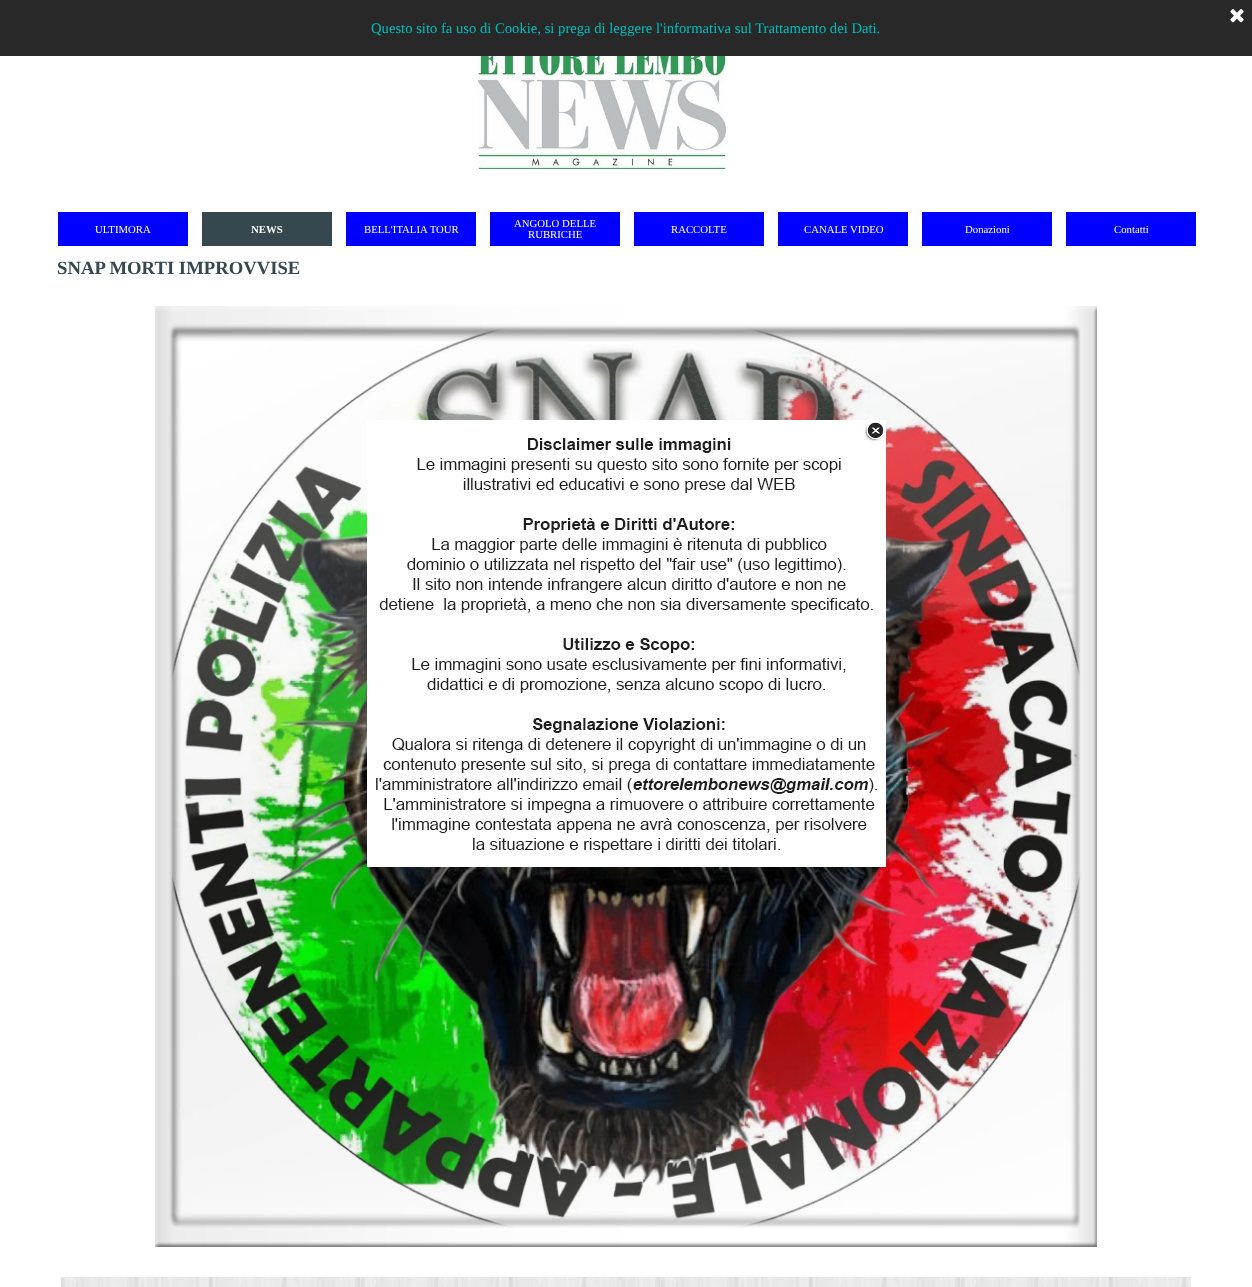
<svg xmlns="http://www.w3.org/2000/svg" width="1252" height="1287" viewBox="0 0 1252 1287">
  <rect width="100%" height="100%" fill="#fff"/>
  <path d="M0 0h1252v56H0z" fill="#282828"/>
  <image x="1230" y="9" width="14" height="14" href="img/1.png"/>
  <image x="478" y="56" width="248" height="113" href="img/2.png"/>
  <path d="M58 212h130v34H58z" fill="#00f"/>
  <path d="M202 212h130v34H202z" fill="#36474f"/>
  <path d="M346 212h130v34H346z" fill="#00f"/>
  <path d="M490 212h130v34H490z" fill="#00f"/>
  <path d="M634 212h130v34H634z" fill="#00f"/>
  <path d="M778 212h130v34H778z" fill="#00f"/>
  <path d="M922 212h130v34H922z" fill="#00f"/>
  <path d="M1066 212h130v34H1066z" fill="#00f"/>
  <image x="155" y="306" width="942" height="941" href="img/3.png"/>
  <image x="61" y="1277" width="1130" height="10" href="img/4.png"/>
  <image x="367" y="420" width="519" height="447" href="img/5.png"/>
  <image x="865" y="422" width="19" height="19" href="img/6.png"/>
  <text x="371" y="33" font-family="Liberation Serif" font-size="14.65" fill="#00bfbf">Questo sito fa uso di Cookie, si prega di leggere l'informativa sul Trattamento dei Dati.</text>
  <text x="95" y="233" font-family="Liberation Serif" font-size="10.75" fill="#fff">ULTIMORA</text>
  <text x="251" y="233" font-family="Liberation Serif" font-size="10.75" font-weight="bold" fill="#fff">NEWS</text>
  <g font-family="Liberation Serif" font-size="10.75" fill="#fff">
    <text x="364" y="233">BELL'ITALIA TOUR</text>
    <text x="514" y="227">ANGOLO DELLE</text>
    <text x="528" y="238">RUBRICHE</text>
    <text x="671" y="233">RACCOLTE</text>
    <text x="804" y="233">CANALE VIDEO</text>
    <text x="965" y="233">Donazioni</text>
    <text x="1114" y="233">Contatti</text>
  </g>
  <text x="57" y="274" font-family="Liberation Serif" font-size="18.7" font-weight="bold" fill="#36474f">SNAP MORTI IMPROVVISE</text>
</svg>
